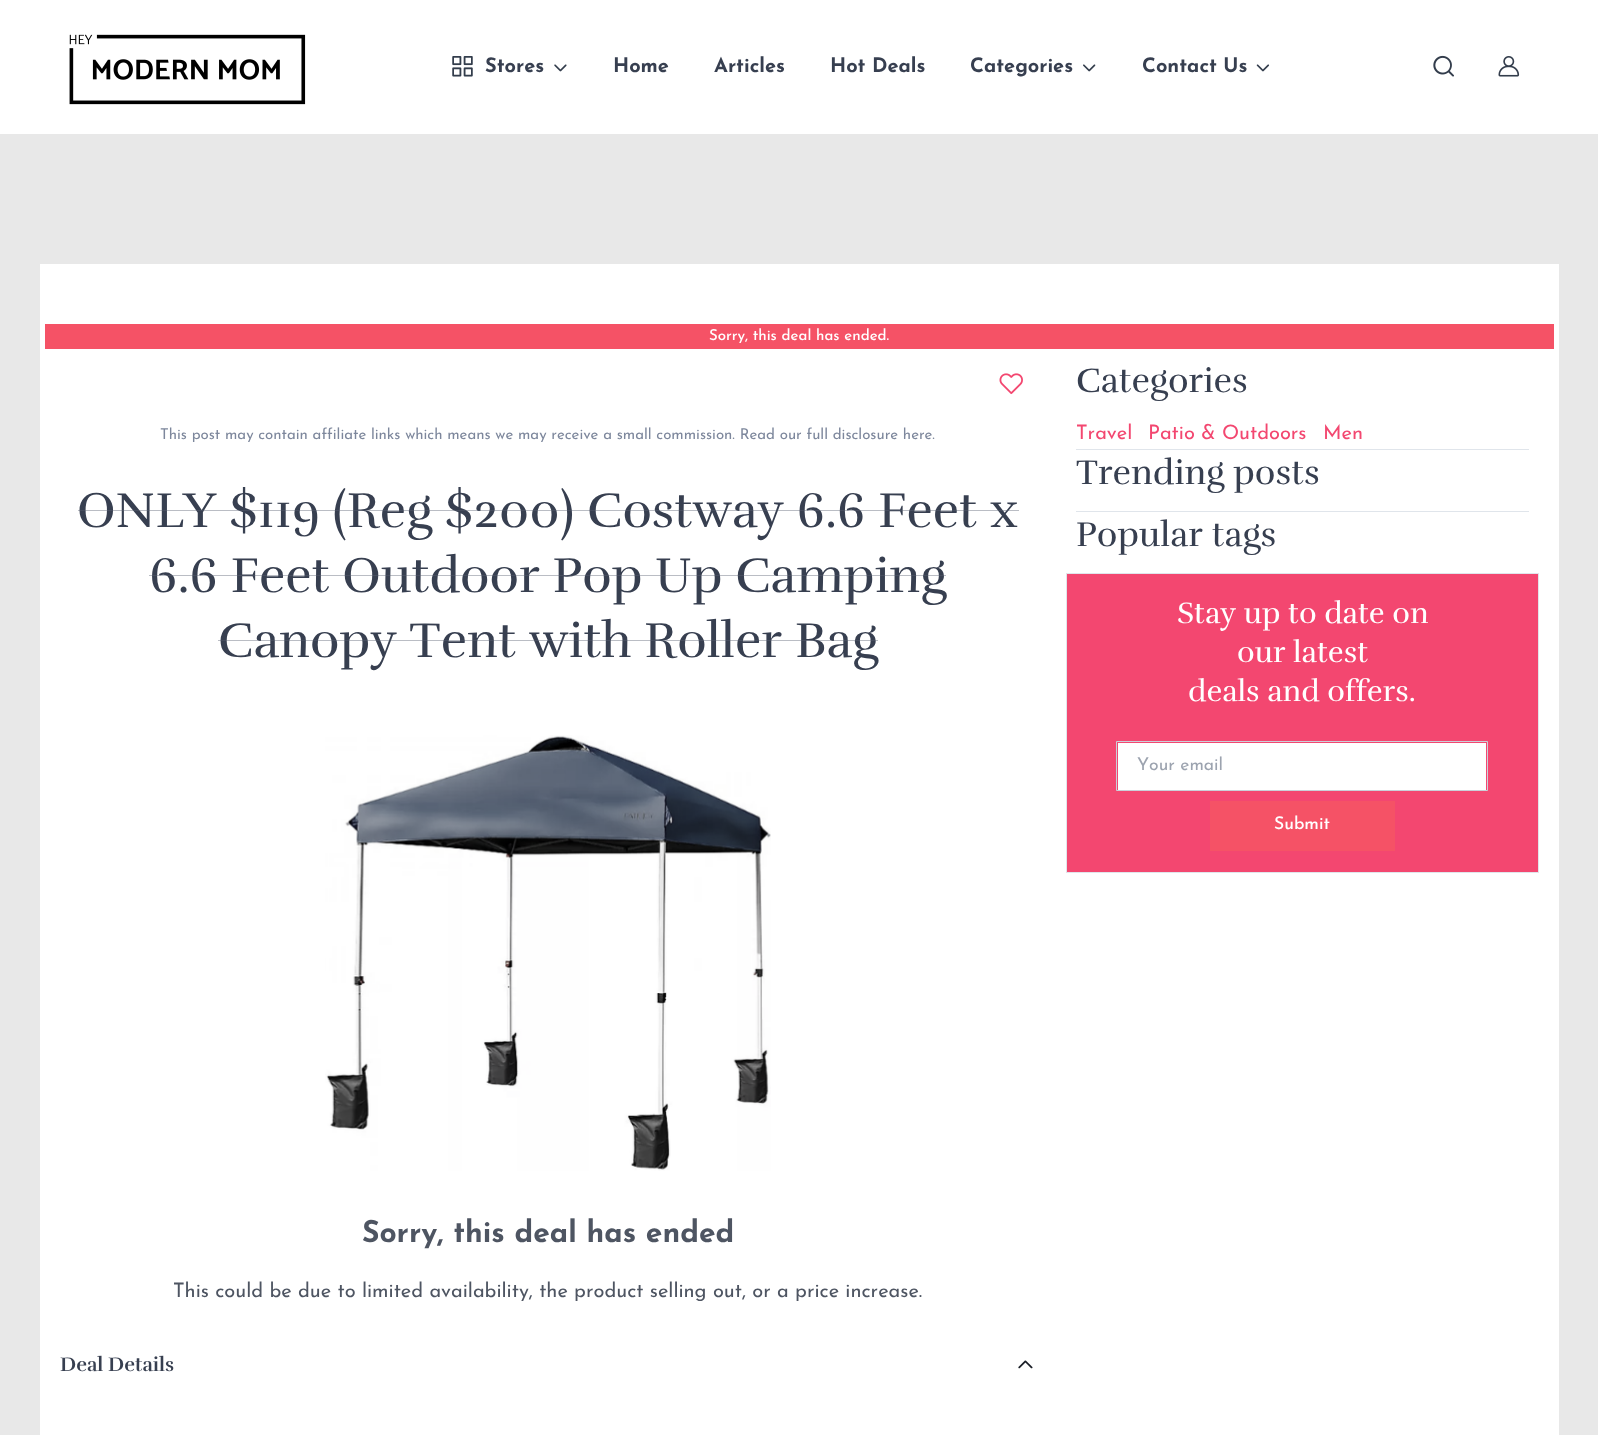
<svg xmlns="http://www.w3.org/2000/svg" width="1598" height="1435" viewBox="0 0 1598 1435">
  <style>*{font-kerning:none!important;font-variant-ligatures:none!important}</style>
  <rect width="100%" height="100%" fill="#fff"/>
  <image x="69" y="34" width="237" height="71" href="img/1.png"/>
  <image x="452" y="56" width="21" height="21" href="img/2.png"/>
  <image x="554" y="64" width="13" height="8" href="img/3.png"/>
  <image x="1083" y="64" width="13" height="8" href="img/4.png"/>
  <image x="1256" y="64" width="14" height="8" href="img/5.png"/>
  <image x="1433" y="55" width="21" height="22" href="img/6.png"/>
  <image x="1498" y="56" width="22" height="21" href="img/7.png"/>
  <path d="M0 134h1598v1301H0z" fill="#e8e8e8"/>
  <path d="M40 264h1519v1171H40z" fill="#fff"/>
  <path d="M45 324h1509v25H45z" fill="#f55266"/>
  <image x="999" y="373" width="24" height="22" href="img/8.png"/>
  <image x="325" y="735" width="446" height="436" href="img/9.png"/>
  <image x="1018" y="1360" width="15" height="9" href="img/10.png"/>
  <path d="M1076 449h453v1H1076z" fill="#e0e5eb"/>
  <path d="M1076 511h453v1H1076z" fill="#e0e5eb"/>
  <path d="M1066.5 573.5h472v299H1066.5z" fill="#f34770" stroke="#e0e5eb"/>
  <path d="M1118 743h368v47H1118z" fill="#fff"/>
  <path d="M1116.5 741.5h371v49H1116.5z" fill="none" stroke="#cad0d9"/>
  <path d="M1210 801h185v50H1210z" fill="#f55266"/>
  <g font-family="Josefin Sans" font-size="20" font-weight="bold" fill="#373f50">
    <text x="485" y="72">Stores</text>
    <text x="613" y="72">Home</text>
    <text x="714" y="72">Articles</text>
    <text x="830" y="72">Hot Deals</text>
    <text x="970" y="72">Categories</text>
    <text x="1142" y="72">Contact Us</text>
  </g>
  <text x="709" y="340" font-family="Josefin Sans" font-size="15" font-weight="500" fill="#fff">Sorry, this deal has ended.</text>
  <text x="160" y="439" font-family="Josefin Sans" font-size="15" fill="#7d879c">This post may contain affiliate links which means we may receive a small commission. Read our full disclosure here.</text>
  <text x="77" y="527" font-family="Rufina" font-size="50" fill="#373f50">ONLY $119 (Reg $200)</text>
  <text x="587" y="527" font-family="Rufina" font-size="50" fill="#373f50">Costway 6.6 Feet x</text>
  <path d="M78 510h941v1H78z" fill="#5a61736b"/>
  <text x="149" y="592" font-family="Rufina" font-size="50" fill="#373f50">6.6 Feet Outdoor Pop Up Camping</text>
  <path d="M149 575h797v1H149z" fill="#5a61736b"/>
  <text x="218" y="657" font-family="Rufina" font-size="50" fill="#373f50">Canopy Tent</text>
  <text x="529" y="657" font-family="Rufina" font-size="50" fill="#373f50">with Roller Bag</text>
  <path d="M218 640h660v1H218z" fill="#5a61736b"/>
  <text x="362" y="1242" font-family="Josefin Sans" font-size="30" font-weight="bold" fill="#4e5562">Sorry, this deal has ended</text>
  <text x="173" y="1297" font-family="Josefin Sans" font-size="20" fill="#4e5562">This could be due to limited availability, the product selling out, or a price increase.</text>
  <text x="60" y="1371" font-family="Rufina" font-size="20" font-weight="bold" fill="#373f50">Deal Details</text>
  <text x="1076" y="392" font-family="Rufina" font-size="35" fill="#373f50">Categories</text>
  <g font-family="Josefin Sans" font-size="20" fill="#f34770">
    <text x="1076" y="439">Travel</text>
    <text x="1148" y="439">Patio &amp; Outdoors</text>
    <text x="1323" y="439">Men</text>
  </g>
  <g font-family="Rufina" font-size="35" fill="#373f50">
    <text x="1076" y="484">Trending posts</text>
    <text x="1076" y="546">Popular tags</text>
  </g>
  <g font-family="Rufina" font-size="30" fill="#fff">
    <text x="1177" y="623">Stay up to date on</text>
    <text x="1237" y="662">our latest</text>
    <text x="1188" y="701">deals and offers.</text>
  </g>
  <text x="1137" y="770" font-family="Josefin Sans" font-size="17.5" fill="#9ca3af">Your email</text>
  <text x="1274" y="829" font-family="Josefin Sans" font-size="17.5" font-weight="500" fill="#fff">Submit</text>
</svg>
